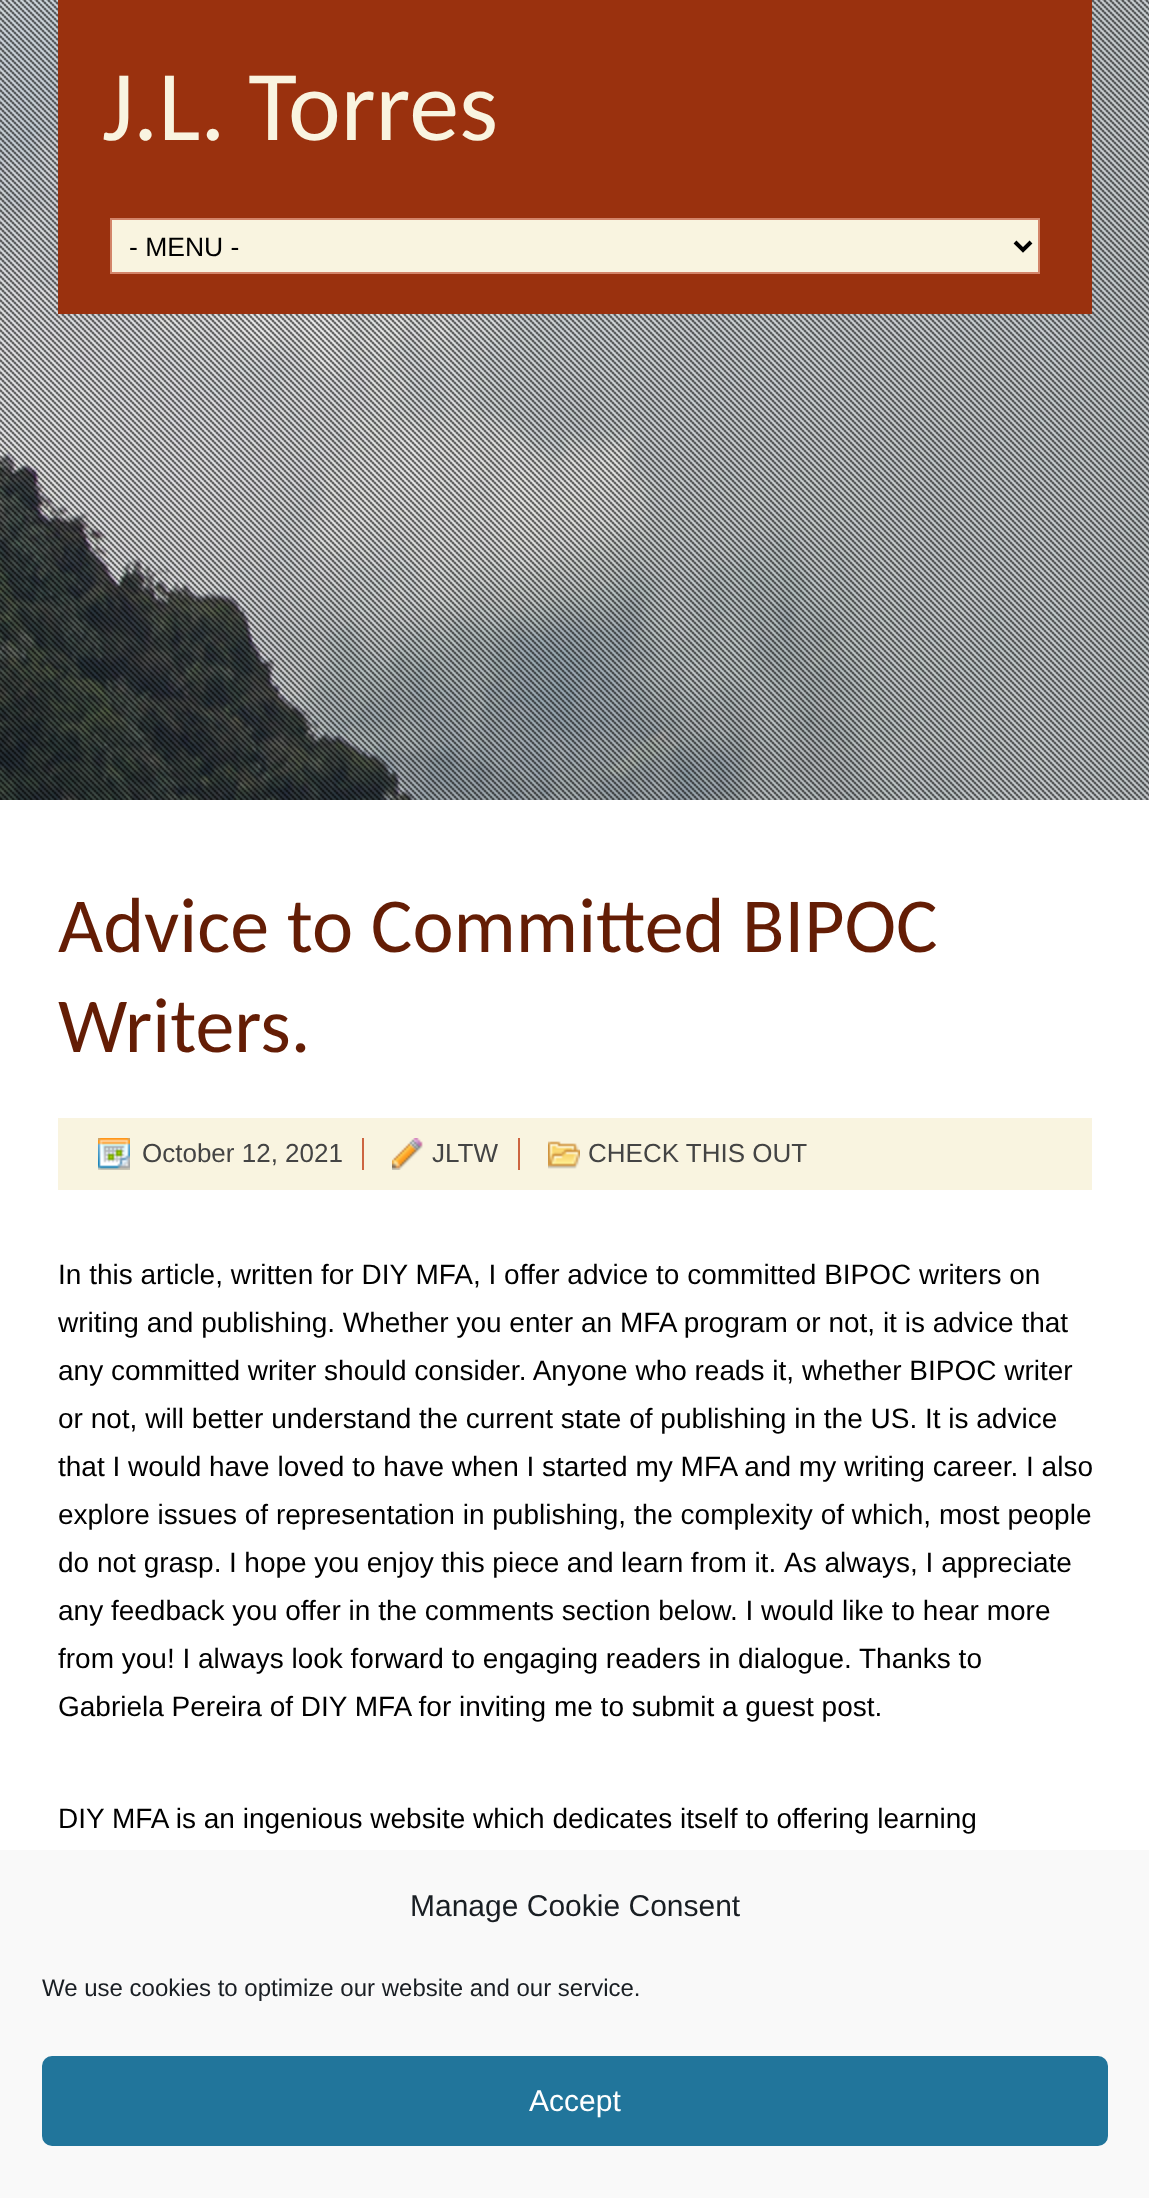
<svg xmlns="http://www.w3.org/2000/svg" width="1149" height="2198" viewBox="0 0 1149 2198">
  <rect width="100%" height="100%" fill="#fff"/>
  <image x="0" y="0" width="1149" height="800" href="img/1.png"/>
  <image x="0" y="0" width="1149" height="800" href="img/2.png"/>
  <path d="M58 0h1034v314H58z" fill="#9a310e"/>
  <path d="M111 219h928v54H111z" fill="#f9f4e0" stroke="#d38469" stroke-width="2"/>
  <path d="M1015 242L1023 250L1031 242" fill="none" stroke="#000" stroke-width="4"/>
  <path d="M58 1118h1034v72H58z" fill="#f9f4e0"/>
  <image x="98" y="1138" width="32" height="32" href="img/3.png"/>
  <image x="392" y="1138" width="31" height="32" href="img/4.png"/>
  <path d="M362 1138h2v32H362z" fill="#cd6541"/>
  <image x="548" y="1141" width="32" height="28" href="img/5.png"/>
  <path d="M518 1138h2v32H518z" fill="#cd6541"/>
  <path d="M0 1850h1149v348H0z" fill="#f9f9f9"/>
  <rect x="43" y="2057" width="1064" height="88" rx="9" fill="#21759b" stroke="#21759b" stroke-width="2"/>
  <text x="102" y="140" font-family="Carlito" font-size="100" fill="#f9f4e0">J.L. Torres</text>
  <text x="129" y="256" font-family="Liberation Sans" font-size="26.5" fill="#000">- MENU -</text>
  <g font-family="Carlito" font-size="78" fill="#641d05">
    <text x="58" y="952">Advice to Committed BIPOC</text>
    <text x="58" y="1052">Writers.</text>
  </g>
  <g font-family="Liberation Sans" font-size="26" fill="#444">
    <text x="142" y="1162">October 12, 2021</text>
    <text x="432" y="1162">JLTW</text>
    <text x="588" y="1162">CHECK THIS OUT</text>
  </g>
  <g font-family="Liberation Sans" font-size="28" fill="#000">
    <text x="58" y="1284">In this article, written for DIY MFA, I offer advice to committed BIPOC writers on</text>
    <text x="58" y="1332">writing and publishing. Whether you enter an MFA program or not, it is advice that</text>
    <text x="58" y="1380">any committed writer should consider. Anyone who reads it, whether BIPOC writer</text>
    <text x="58" y="1428">or not, will better understand the current state of publishing in the US. It is advice</text>
    <text x="58" y="1476">that I would have loved to have when I started my MFA and my writing career. I also</text>
    <text x="58" y="1524">explore issues of representation in publishing, the complexity of which, most people</text>
    <text x="58" y="1572">do not grasp.</text>
    <text x="229" y="1572" word-spacing="-0.25">I hope you enjoy this piece and learn from it.</text>
    <text x="784" y="1572">As always, I appreciate</text>
    <text x="58" y="1620">any feedback you offer in the comments section below. I would like to hear more</text>
    <text x="58" y="1668">from you! I always look forward to engaging readers in dialogue.</text>
    <text x="859" y="1668">Thanks to</text>
    <text x="58" y="1716">Gabriela Pereira of DIY MFA for inviting me to submit a guest post.</text>
    <text x="58" y="1828">DIY MFA is an ingenious website which dedicates itself to offering learning</text>
  </g>
  <text x="410" y="1916" font-family="Liberation Sans" font-size="30" fill="#191e23">Manage Cookie Consent</text>
  <text x="42" y="1996" font-family="Liberation Sans" font-size="24" fill="#191e23">We use cookies to optimize our website and our service.</text>
  <text x="529" y="2111" font-family="Liberation Sans" font-size="30" fill="#fff">Accept</text>
</svg>
